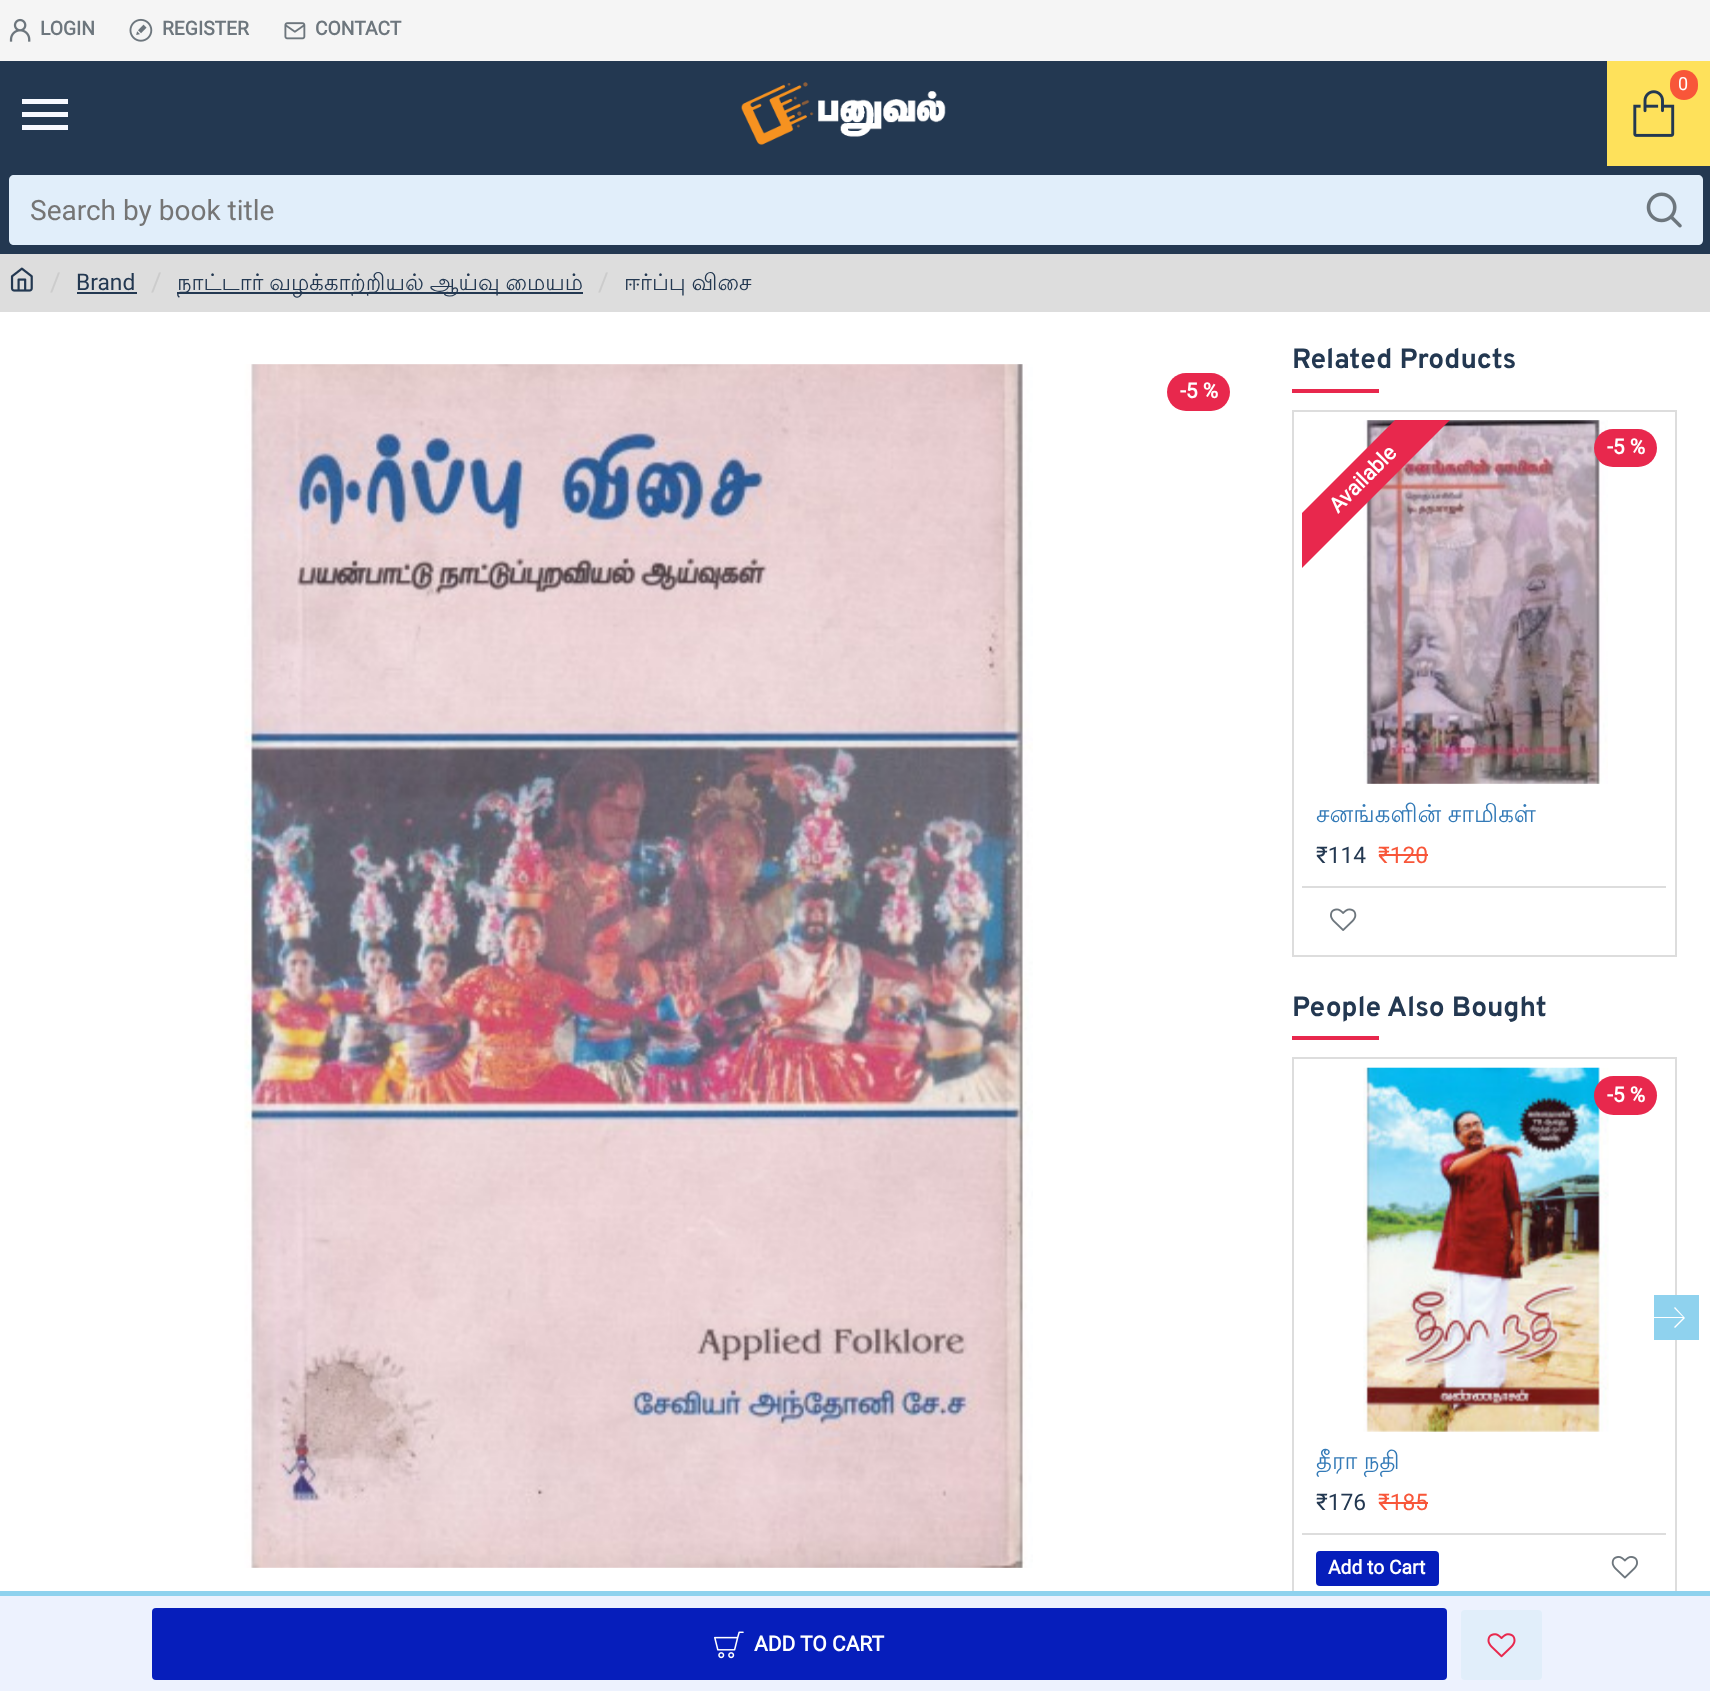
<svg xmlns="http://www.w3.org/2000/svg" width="1710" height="1691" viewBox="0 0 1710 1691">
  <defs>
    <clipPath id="clip1"><path d="M1302 420h364v364H1302z"/></clipPath>
  </defs>
  <rect width="100%" height="100%" fill="#fff"/>
  <path d="M0 0h1710v61H0z" fill="#f5f5f5"/>
  <image x="9" y="18" width="22" height="24" href="img/1.png"/>
  <image x="129" y="18" width="24" height="24" href="img/2.png"/>
  <image x="284" y="22" width="22" height="18" href="img/3.png"/>
  <path d="M0 61h1607v105H0z" fill="#233851"/>
  <path d="M22 99H68V104H22ZM22 117V112H68V117ZM22 130V125H68V130Z" fill="#f7f9ff"/>
  <image x="741" y="82" width="205" height="63" href="img/4.png"/>
  <path d="M1607 61h103v105H1607z" fill="#fee15b"/>
  <image x="1633" y="90" width="42" height="47" href="img/5.png"/>
  <rect x="1670" y="70" width="28" height="30" rx="14" fill="#f85639"/>
  <path d="M0 166h1710v88H0z" fill="#233851"/>
  <path d="M14 175H1624V245H14C11 245 9 243 9 240V180C9 177 11 175 14 175Z" fill="#e1eefa"/>
  <path d="M1624 175H1698C1701 175 1703 177 1703 180V240C1703 243 1701 245 1698 245H1624Z" fill="#e1eefa"/>
  <image x="1646" y="192" width="36" height="36" href="img/6.png"/>
  <path d="M0 254h1710v58H0z" fill="#ddd"/>
  <image x="10" y="267" width="23" height="25" href="img/7.png"/>
  <path d="M77 292h60v2H77z" fill="#233851"/>
  <path d="M177 292h406v2H177z" fill="#233851"/>
  <image x="244" y="364" width="789" height="1204" href="img/8.png"/>
  <rect x="1167" y="373" width="63" height="38" rx="19" fill="#e8284d"/>
  <path d="M1293 1058h383v546H1293z" fill="none" stroke="#ddd" stroke-width="2"/>
  <path d="M0 1596h1710v95H0z" fill="#edf2fe"/>
  <path d="M0 1591h1710v5H0z" fill="#8fd2ee"/>
  <rect x="152" y="1608" width="1295" height="72" rx="4" fill="#061ebb"/>
  <image x="714" y="1631" width="30" height="28" href="img/9.png"/>
  <rect x="1461" y="1610" width="81" height="70" rx="4" fill="#e1eefa"/>
  <image x="1487" y="1633" width="29" height="25" href="img/10.png"/>
  <path d="M1292 389h87v4H1292z" fill="#e8284d"/>
  <path d="M1293 411h383v545H1293z" fill="none" stroke="#ddd" stroke-width="2"/>
  <image x="1363" y="420" width="245" height="364" href="img/11.png"/>
  <g clip-path="url(#clip1)">
    <path d="M1178 637L1522 293C1529 286 1541 286 1549 293C1556 301 1556 313 1549 321L1205 665C1197 672 1185 672 1178 665C1170 657 1170 645 1178 637Z" fill="#e8284d"/>
  </g>
  <rect x="1594" y="429" width="63" height="38" rx="19" fill="#e8284d"/>
  <path d="M1379 854h49v2H1379z" fill="#f85639"/>
  <path d="M1302 886h364v2H1302z" fill="#ddd"/>
  <image x="1330" y="908" width="27" height="23" href="img/12.png"/>
  <path d="M1292 1036h87v4H1292z" fill="#e8284d"/>
  <image x="1363" y="1067" width="246" height="365" href="img/13.png"/>
  <rect x="1594" y="1076" width="63" height="39" rx="19.5" fill="#e8284d"/>
  <path d="M1379 1502h49v2H1379z" fill="#f85639"/>
  <path d="M1302 1533h364v2H1302z" fill="#ddd"/>
  <rect x="1316" y="1551" width="123" height="35" rx="4" fill="#061ebb"/>
  <image x="1611" y="1556" width="27" height="23" href="img/14.png"/>
  <path d="M1675 1307h2v21H1675z" fill="#fff"/>
  <path d="M1654 1317H1683L1674 1308L1675 1307L1685 1318L1675 1328L1674 1327L1683 1318H1654V1340H1699V1295H1654Z" fill="#8fd2ee"/>
  <g font-family="Roboto" font-size="19.25" font-weight="bold" fill="#6d767d">
    <text x="40" y="35">LOGIN</text>
    <text x="162" y="35">REGISTER</text>
    <text x="315" y="35">CONTACT</text>
  </g>
  <text x="1678" y="90" font-family="Roboto" font-size="18" fill="#fff">0</text>
  <text x="30" y="220" font-family="Roboto" font-size="28" fill="#757575">Search by book title</text>
  <text x="50" y="291" font-family="Roboto" font-size="26" fill="#ccc">/</text>
  <text x="76" y="290" font-family="Roboto" font-size="22.75" fill="#233851">Brand</text>
  <text x="151" y="291" font-family="Roboto" font-size="26" fill="#ccc">/</text>
  <text x="177" y="290" word-spacing="-1" font-family="Lohit Tamil" font-size="22.75" fill="#233851">நாட்டார் வழக்காற்றியல் ஆய்வு மையம்</text>
  <text x="598" y="291" font-family="Roboto" font-size="26" fill="#ccc">/</text>
  <text x="624" y="290" word-spacing="-1" font-family="Lohit Tamil" font-size="22.75" fill="#233851">ஈர்ப்பு விசை</text>
  <g font-family="Roboto" font-size="21" font-weight="bold" fill="#fff">
    <text x="1180" y="398">-5 %</text>
    <text x="754" y="1651">ADD TO CART</text>
  </g>
  <text x="1292" y="368" font-family="Overpass" font-size="28" font-weight="bold" fill="#233851">Related Products</text>
  <g font-family="Roboto" font-size="21" font-weight="bold" fill="#fff">
    <text x="1338" y="514" transform="rotate(-45 1338 514)">Available</text>
    <text x="1607" y="454">-5 %</text>
  </g>
  <text x="1316" y="822" word-spacing="-1" font-family="Lohit Tamil" font-size="24.5" fill="#337ab7">சனங்களின் சாமிகள்</text>
  <text x="1316" y="863" font-family="Roboto" font-size="22.75" fill="#233851">₹114</text>
  <text x="1378" y="863" font-family="Roboto" font-size="22.75" fill="#f85639">₹120</text>
  <text x="1292" y="1016" font-family="Overpass" font-size="28" font-weight="bold" fill="#233851">People Also Bought</text>
  <text x="1607" y="1102" font-family="Roboto" font-size="21" font-weight="bold" fill="#fff">-5 %</text>
  <text x="1316" y="1469" word-spacing="-1" font-family="Lohit Tamil" font-size="24.5" fill="#337ab7">தீரா நதி</text>
  <text x="1316" y="1510" font-family="Roboto" font-size="22.75" fill="#233851">₹176</text>
  <text x="1378" y="1510" font-family="Roboto" font-size="22.75" fill="#f85639">₹185</text>
  <text x="1328" y="1574" font-family="Roboto" font-size="19.25" font-weight="bold" fill="#fff">Add to Cart</text>
</svg>
